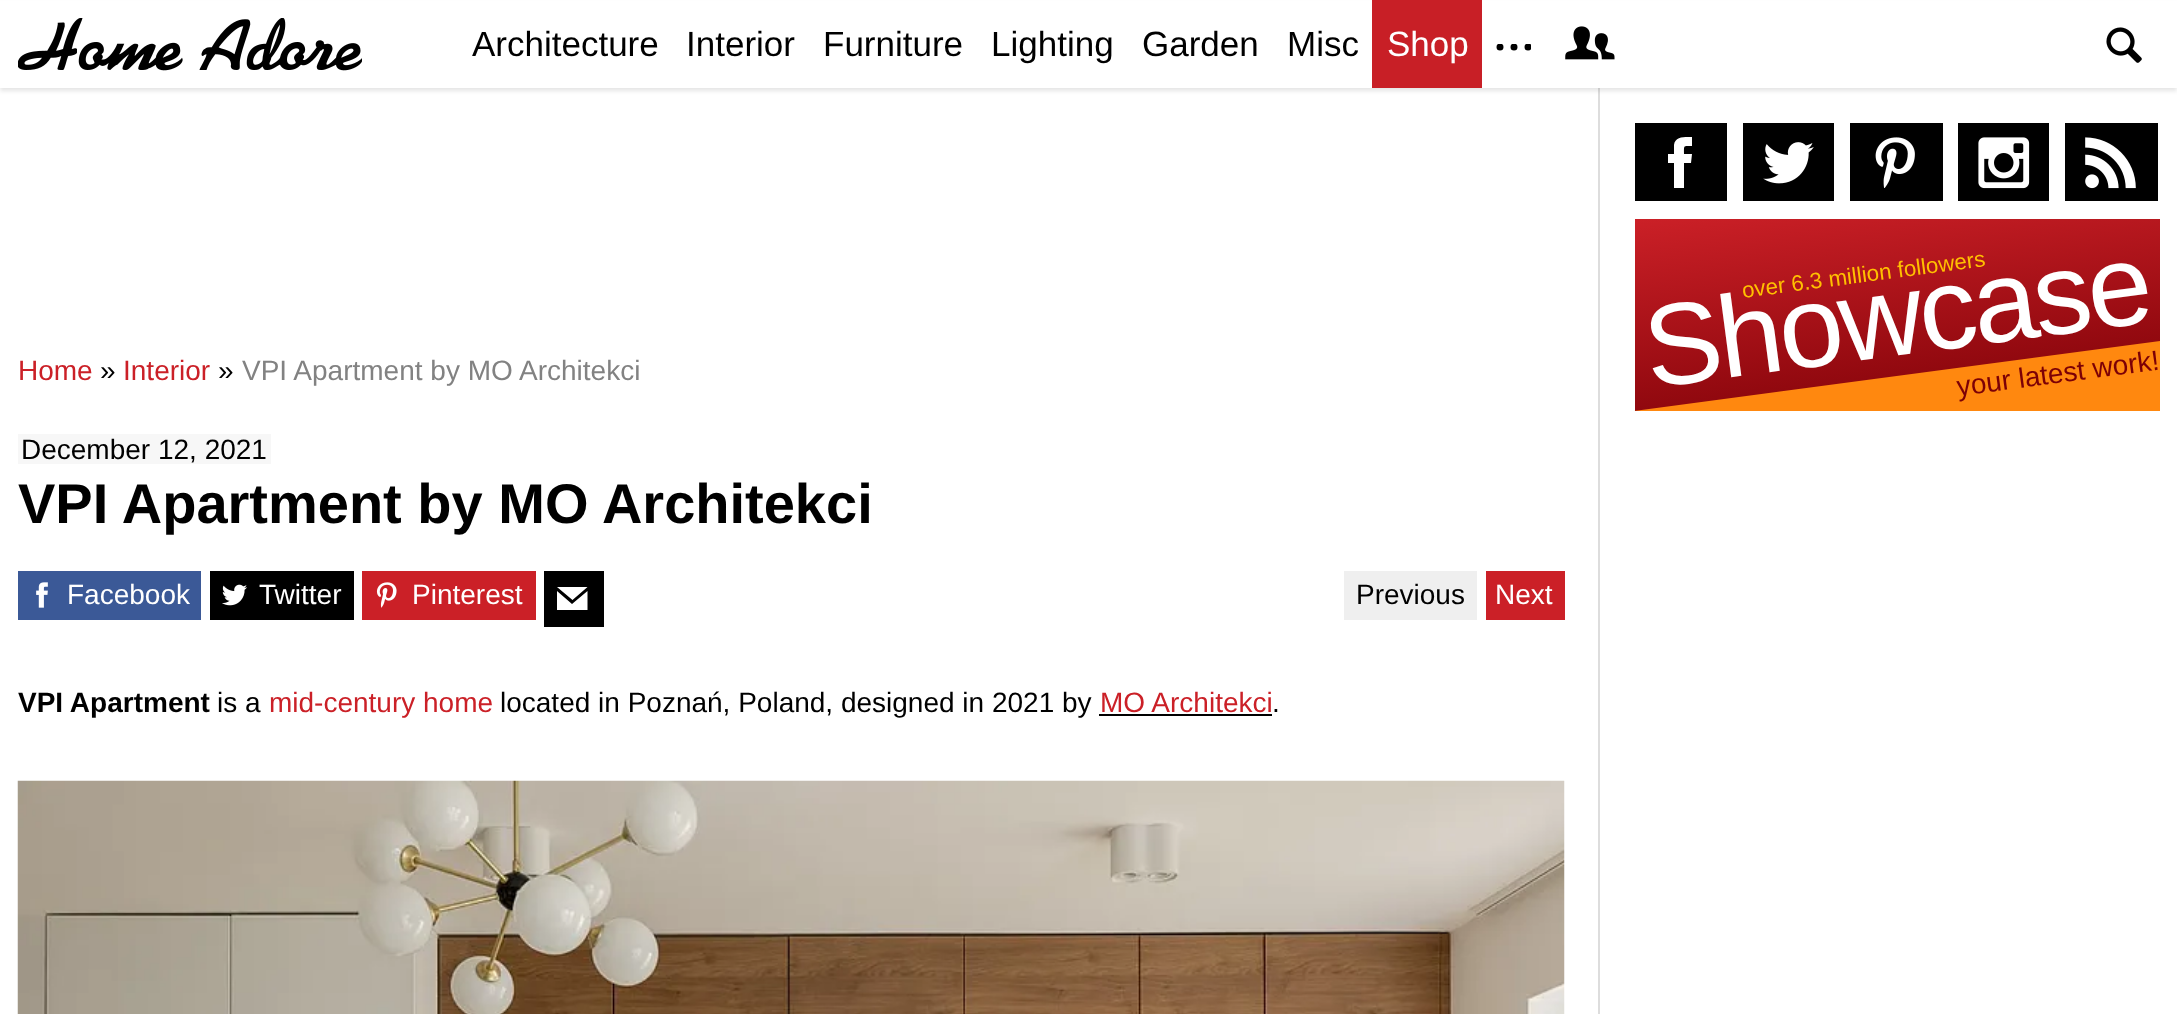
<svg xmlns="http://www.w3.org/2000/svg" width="2177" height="1014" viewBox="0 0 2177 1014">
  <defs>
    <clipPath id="clip1"><path d="M1496 44h35v12H1496z"/></clipPath>
    <linearGradient id="g1" gradientUnits="userSpaceOnUse" x1="1881" y1="188" x2="1913" y2="442"><stop offset="0" stop-color="#cb2027"/><stop offset="1" stop-color="#7c0006"/></linearGradient>
  </defs>
  <rect width="100%" height="100%" fill="#fff"/>
  <path d="M1598 88h2v926H1598z" fill="#ddd"/>
  <path d="M0 4h2177v87H0z" fill="#0000001a" filter="blur(2px)"/>
  <path d="M0 1h2177v87H0z" fill="#fff"/>
  <image x="18" y="18" width="344" height="53" href="img/1.png"/>
  <path d="M1372 0h110v88H1372z" fill="#c81f26"/>
  <g clip-path="url(#clip1)">
    <circle cx="1500" cy="47" r="3.5" fill="#000"/>
    <circle cx="1514" cy="47" r="3.5" fill="#000"/>
    <circle cx="1528" cy="47" r="3.5" fill="#000"/>
  </g>
  <image x="1565" y="26" width="50" height="34" href="img/2.png"/>
  <image x="2106" y="27" width="36" height="36" href="img/3.png"/>
  <path d="M1635 123h92v78H1635z" fill="#000"/>
  <path d="M1674 154H1668V163H1674V188H1684V163H1691L1692 154H1684C1684 145 1683 146 1692 146V137C1685 137 1675 136 1674 145Z" fill="#fff"/>
  <path d="M1743 123h91v78H1743z" fill="#000"/>
  <image x="1763" y="142" width="51" height="42" href="img/4.png"/>
  <path d="M1850 123h93v78H1850z" fill="#000"/>
  <image x="1875" y="137" width="40" height="51" href="img/5.png"/>
  <path d="M1958 123h91v78H1958z" fill="#000"/>
  <image x="1978" y="137" width="52" height="52" href="img/6.png"/>
  <path d="M2065 123h93v78H2065z" fill="#000"/>
  <image x="2085" y="137" width="51" height="52" href="img/7.png"/>
  <path d="M1635 219h525v192H1635z" fill="url(#g1)"/>
  <path d="M2160 411H1634L2160 341Z" fill="#ff880f"/>
  <path d="M18 434h253v30H18z" fill="#f7f7f7"/>
  <path d="M18 571h183v49H18z" fill="#3b5997"/>
  <image x="36" y="582" width="12" height="26" href="img/8.png"/>
  <path d="M210 571h144v49H210z" fill="#000"/>
  <image x="222" y="584" width="25" height="22" href="img/9.png"/>
  <path d="M362 571h174v49H362z" fill="#cb2027"/>
  <image x="376" y="582" width="21" height="26" href="img/10.png"/>
  <path d="M544 571h60v56H544z" fill="#000"/>
  <path d="M572.5 600L557 587H587.5ZM572 604L557 591V610H587.5V591Z" fill="#fff"/>
  <path d="M1344 571h133v49H1344z" fill="#efefef"/>
  <path d="M1486 571h79v49H1486z" fill="#cb2027"/>
  <path d="M1099 714h173v2H1099z" fill="#000"/>
  <image x="17" y="780" width="1548" height="234" href="img/11.png"/>
  <g font-family="Liberation Sans" font-size="35" fill="#000">
    <text x="472" y="56">Architecture</text>
    <text x="686" y="56">Interior</text>
    <text x="823" y="56">Furniture</text>
    <text x="991" y="56">Lighting</text>
    <text x="1142" y="56">Garden</text>
    <text x="1287" y="56">Misc</text>
  </g>
  <text x="1387" y="56" font-family="Liberation Sans" font-size="35" fill="#fff">Shop</text>
  <text x="1743" y="298" transform="rotate(-7.5 1743 298)" font-family="Liberation Sans" font-size="22.4" fill="#ffc000">over 6.3 million followers</text>
  <text x="1650" y="388" transform="rotate(-7.5 1650 388)" font-family="Liberation Sans" font-size="116" letter-spacing="-3.5" fill="#fff">Showcase</text>
  <text x="1958" y="396" transform="rotate(-7.5 1958 396)" font-family="Liberation Sans" font-size="28" fill="#7c0006">your latest work!</text>
  <text x="18" y="380" font-family="Liberation Sans" font-size="28" fill="#cb2027">Home</text>
  <text x="100" y="380" font-family="Liberation Sans" font-size="28" fill="#000">»</text>
  <text x="123" y="380" font-family="Liberation Sans" font-size="28" fill="#cb2027">Interior</text>
  <text x="218" y="380" font-family="Liberation Sans" font-size="28" fill="#000">»</text>
  <text x="242" y="380" font-family="Liberation Sans" font-size="28" fill="#828282">VPI Apartment by MO Architekci</text>
  <text x="21" y="459" font-family="Liberation Sans" font-size="28" fill="#000">December 12, 2021</text>
  <text x="18" y="523" font-family="Liberation Sans" font-size="56" font-weight="bold" fill="#000">VPI Apartment by MO Architekci</text>
  <g font-family="Liberation Sans" font-size="28" fill="#fff">
    <text x="67" y="604">Facebook</text>
    <text x="259" y="604">Twitter</text>
    <text x="412" y="604">Pinterest</text>
  </g>
  <text x="1356" y="604" font-family="Liberation Sans" font-size="28" fill="#000">Previous</text>
  <text x="1495" y="604" font-family="Liberation Sans" font-size="28" fill="#fff">Next</text>
  <text x="18" y="712" font-family="Liberation Sans" font-size="28" font-weight="bold" fill="#000">VPI Apartment</text>
  <text x="217" y="712" font-family="Liberation Sans" font-size="28" fill="#000">is a</text>
  <text x="269" y="712" font-family="Liberation Sans" font-size="28" fill="#cb2027">mid-century home</text>
  <text x="500" y="712" font-family="Liberation Sans" font-size="28" fill="#000">located in Poznań, Poland, designed in 2021 by</text>
  <text x="1100" y="712" font-family="Liberation Sans" font-size="28" fill="#cb2027">MO Architekci</text>
  <text x="1272" y="712" font-family="Liberation Sans" font-size="28" fill="#000">.</text>
</svg>
